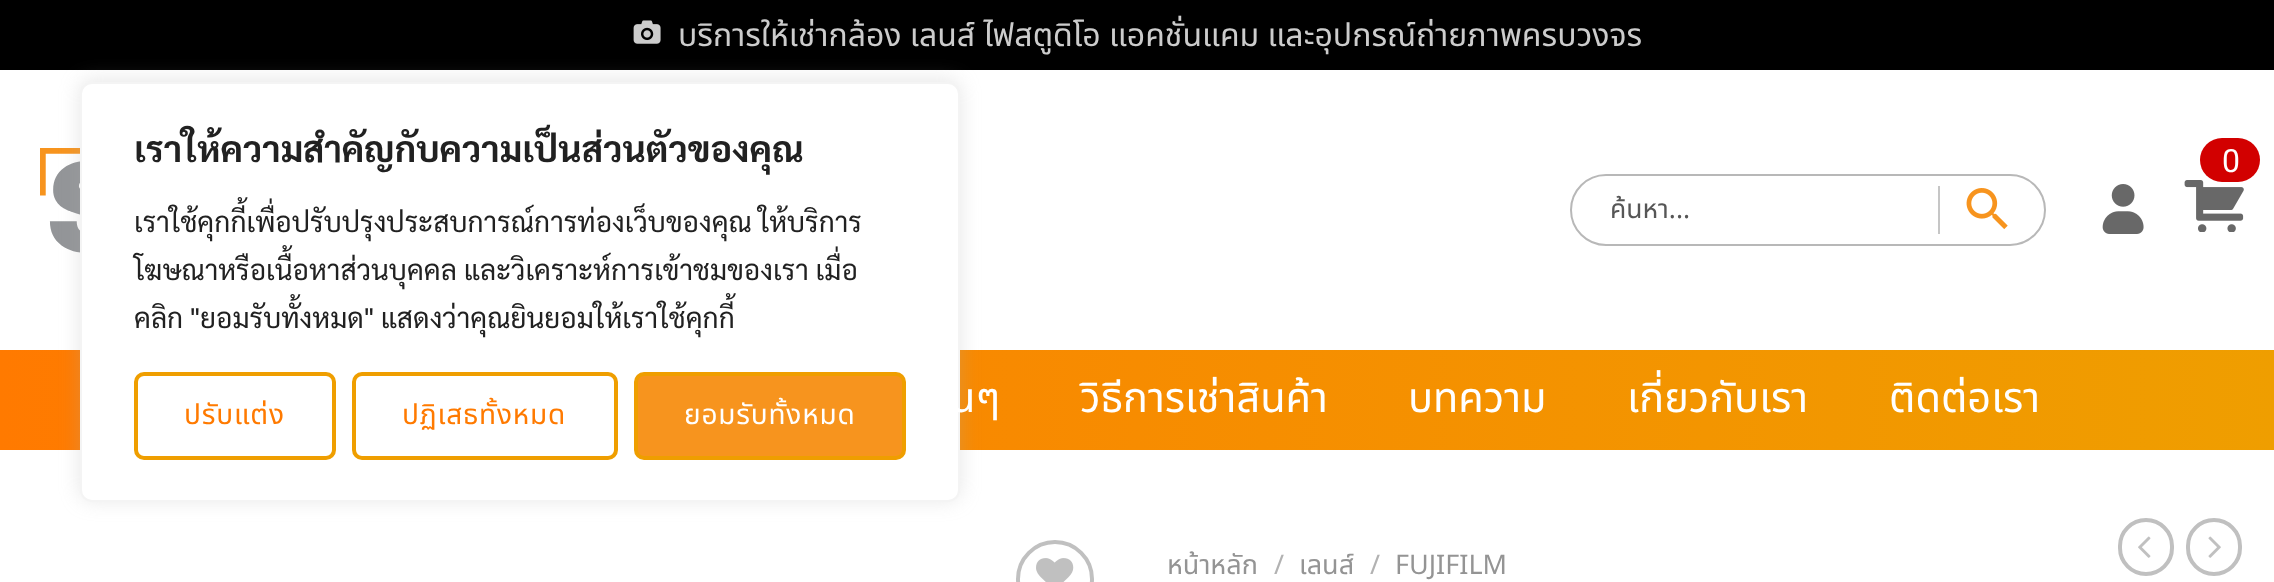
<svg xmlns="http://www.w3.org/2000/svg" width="2274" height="582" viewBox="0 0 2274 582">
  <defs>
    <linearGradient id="g1" gradientUnits="userSpaceOnUse" x1="0" y1="400" x2="2274" y2="400"><stop offset="0" stop-color="#ff7a00"/><stop offset="1" stop-color="#ef9e00"/></linearGradient>
    <clipPath id="clip1"><path d="M1610 190h300v40H1610z"/></clipPath>
  </defs>
  <rect width="100%" height="100%" fill="#fff"/>
  <path d="M0 0h2274v70H0z" fill="#000"/>
  <image x="40" y="148" width="40" height="105" href="img/2.png"/>
  <path d="M0 350h2274v100H0z" fill="url(#g1)"/>
  <rect x="80" y="80" width="880" height="420" rx="12" fill="#acabab4d" filter="blur(10px)"/>
  <rect x="81" y="83" width="878" height="418" rx="11" fill="#fff" stroke="#f4f4f4" stroke-width="2"/>
  <rect x="136" y="374" width="198" height="84" rx="8" fill="none" stroke="#ef9e00" stroke-width="4"/>
  <rect x="354" y="374" width="262" height="84" rx="8" fill="none" stroke="#ef9e00" stroke-width="4"/>
  <rect x="636" y="374" width="268" height="84" rx="8" fill="#f7941e" stroke="#ef9e00" stroke-width="4"/>
  <image x="633" y="20" width="28" height="24" href="img/1.png"/>
  <image x="2184" y="180" width="60" height="52" href="img/3.png"/>
  <rect x="2200" y="138" width="60" height="44" rx="22" fill="#d20000"/>
  <rect x="1571" y="175" width="474" height="70" rx="35" fill="none" stroke="#b8b8b8" stroke-width="2"/>
  <path d="M1938 186h2v48H1938z" fill="#c6c6c6"/>
  <image x="1966" y="188" width="42" height="42" href="img/4.png"/>
  <image x="2102" y="184" width="42" height="50" href="img/5.png"/>
  <circle cx="1055" cy="579" r="37" fill="none" stroke="#c0c0c0" stroke-width="4"/>
  <image x="1036" y="558" width="38" height="24" href="img/6.png"/>
  <rect x="2120" y="520" width="52" height="54" rx="26" fill="none" stroke="#c0c0c0" stroke-width="4"/>
  <image x="2138" y="536" width="13" height="22" href="img/7.png"/>
  <rect x="2188" y="520" width="52" height="54" rx="26" fill="none" stroke="#c0c0c0" stroke-width="4"/>
  <image x="2208" y="536" width="13" height="22" href="img/8.png"/>
  <text x="134" y="162" font-family="Sarabun" font-size="36" font-weight="bold" fill="#212121">เราให้ความสำคัญกับความเป็นส่วนตัวของคุณ</text>
  <g font-family="Sarabun" font-size="28" fill="#212121">
    <text x="134" y="232">เราใช้คุกกี้เพื่อปรับปรุงประสบการณ์การท่องเว็บของคุณ ให้บริการ</text>
    <text x="134" y="280">โฆษณาหรือเนื้อหาส่วนบุคคล และวิเคราะห์การเข้าชมของเรา เมื่อ</text>
    <text x="134" y="328">คลิก "ยอมรับทั้งหมด" แสดงว่าคุณยินยอมให้เราใช้คุกกี้</text>
  </g>
  <g font-family="Noto Sans Thai" font-size="28" letter-spacing="0.8" fill="#ff7a00">
    <text x="184" y="424">ปรับแต่ง</text>
    <text x="402" y="424">ปฏิเสธทั้งหมด</text>
  </g>
  <text x="684" y="424" font-family="Noto Sans Thai" font-size="28" letter-spacing="0.8" fill="#fff">ยอมรับทั้งหมด</text>
  <text x="678" y="46" font-family="Noto Sans Thai" font-size="32" fill="#ccc">บริการให้เช่ากล้อง เลนส์ ไฟสตูดิโอ แอคชั่นแคม และอุปกรณ์ถ่ายภาพครบวงจร</text>
  <text x="2222" y="172" font-family="Roboto" font-size="32" fill="#fff">0</text>
  <g clip-path="url(#clip1)">
    <text x="1610" y="218" font-family="Noto Sans Thai" font-size="26.5" fill="#565656">ค้นหา...</text>
  </g>
  <g font-family="Noto Sans Thai" font-size="41.5" fill="#fff">
    <text x="950" y="412">นๆ</text>
    <text x="1080" y="412">วิธีการเช่าสินค้า</text>
    <text x="1408" y="412">บทความ</text>
    <text x="1627" y="412">เกี่ยวกับเรา</text>
    <text x="1889" y="412">ติดต่อเรา</text>
  </g>
  <text x="1167" y="574" font-family="Noto Sans Thai" font-size="27" fill="#949494">หน้าหลัก</text>
  <text x="1274" y="574" font-family="Noto Sans Thai" font-size="27" fill="#b2b2b2">/</text>
  <text x="1299" y="574" font-family="Noto Sans Thai" font-size="27" fill="#949494">เลนส์</text>
  <text x="1370" y="574" font-family="Noto Sans Thai" font-size="27" fill="#b2b2b2">/</text>
  <text x="1395" y="574" font-family="Noto Sans Thai" font-size="27" fill="#949494">FUJIFILM</text>
</svg>
